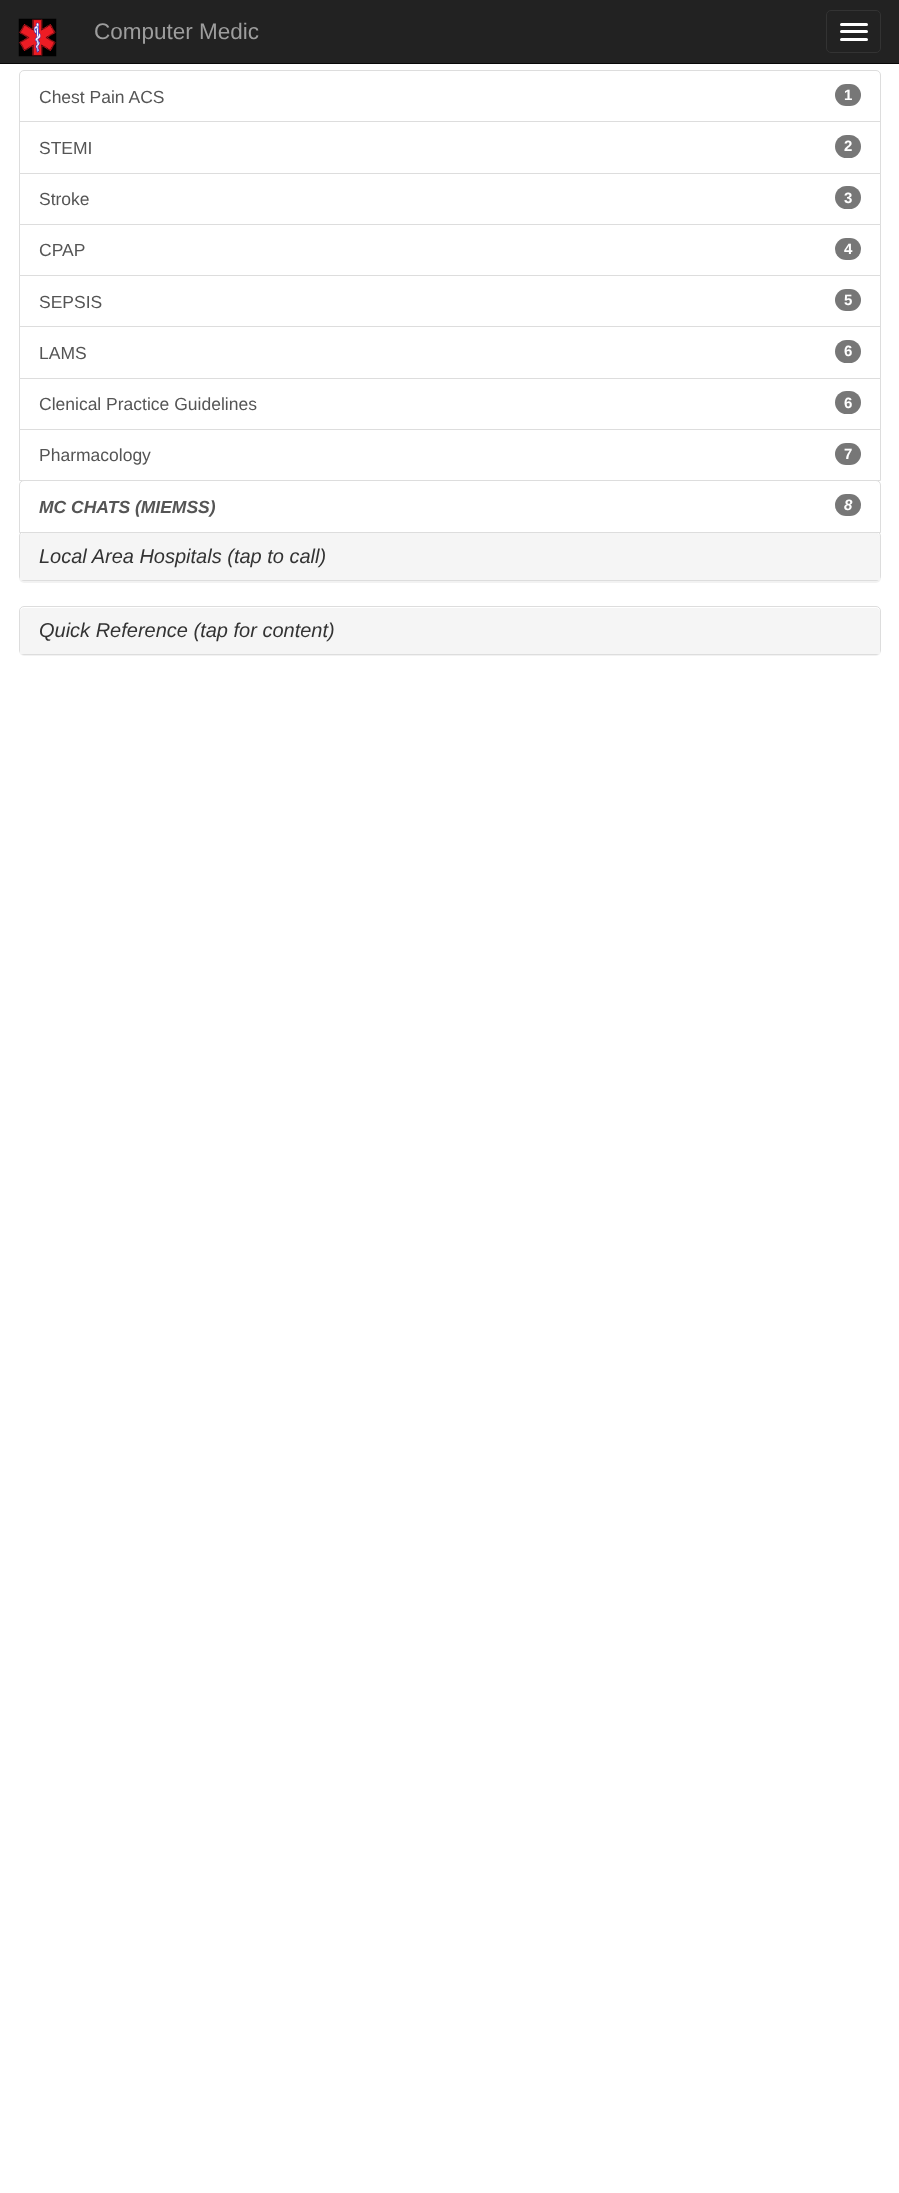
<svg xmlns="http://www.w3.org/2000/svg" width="899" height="2193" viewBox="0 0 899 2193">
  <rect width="100%" height="100%" fill="#fff"/>
  <path d="M0 0h899v63H0z" fill="#222"/>
  <path d="M0 63h899v1H0z" fill="#080808"/>
  <image x="18" y="18" width="39" height="39" href="img/1.png"/>
  <rect x="826.5" y="10.5" width="54" height="42" rx="4.5" fill="none" stroke="#333"/>
  <rect x="840" y="23" width="28" height="3" rx="1.5" fill="#fff"/>
  <rect x="840" y="30" width="28" height="3" rx="1.5" fill="#fff"/>
  <rect x="840" y="38" width="28" height="3" rx="1.5" fill="#fff"/>
  <path d="M24 70.5H876C878.5 70.5 880.5 72.5 880.5 75V122.5H19.5V75C19.5 72.5 21.5 70.5 24 70.5Z" fill="none" stroke="#ddd"/>
  <rect x="835" y="84" width="26" height="22" rx="11" fill="#777"/>
  <path d="M20 122h860v1H20z" fill="#fff"/>
  <path d="M19.5 121.5h861v52H19.5z" fill="none" stroke="#ddd"/>
  <rect x="835" y="135" width="26" height="23" rx="11.5" fill="#777"/>
  <path d="M19.5 173.5h861v51H19.5z" fill="none" stroke="#ddd"/>
  <rect x="835" y="186" width="26" height="23" rx="11.5" fill="#777"/>
  <path d="M19.5 224.5h861v51H19.5z" fill="none" stroke="#ddd"/>
  <rect x="835" y="238" width="26" height="22" rx="11" fill="#777"/>
  <path d="M19.5 275.5h861v52H19.5z" fill="none" stroke="#ddd"/>
  <rect x="835" y="289" width="26" height="22" rx="11" fill="#777"/>
  <path d="M20 327h860v1H20z" fill="#fff"/>
  <path d="M19.5 326.5h861v52H19.5z" fill="none" stroke="#ddd"/>
  <rect x="835" y="340" width="26" height="23" rx="11.5" fill="#777"/>
  <path d="M19.5 378.5h861v51H19.5z" fill="none" stroke="#ddd"/>
  <rect x="835" y="391" width="26" height="23" rx="11.5" fill="#777"/>
  <path d="M19.5 429.5h861v51H19.5z" fill="none" stroke="#ddd"/>
  <rect x="835" y="443" width="26" height="22" rx="11" fill="#777"/>
  <rect x="19" y="533" width="862" height="50" rx="5" fill="#0000000d" filter="blur(0.5px)"/>
  <rect x="19.5" y="531.5" width="861" height="49" rx="4.5" fill="none" stroke="#ddd"/>
  <path d="M24 480.5H876C878.5 480.5 880.5 482.5 880.5 485V532.5H19.5V485C19.5 482.5 21.5 480.5 24 480.5Z" fill="#fff" stroke="#ddd"/>
  <rect x="835" y="494" width="26" height="22" rx="11" fill="#777"/>
  <path d="M24 533H876C878 533 880 535 880 537V580H20V537C20 535 22 533 24 533Z" fill="#f5f5f5"/>
  <rect x="19" y="608" width="862" height="48" rx="5" fill="#0000000d" filter="blur(0.5px)"/>
  <rect x="19.5" y="606.5" width="861" height="48" rx="4.5" fill="#fff" stroke="#ddd"/>
  <path d="M24 608H876C878 608 880 610 880 612V654H20V612C20 610 22 608 24 608Z" fill="#f5f5f5"/>
  <text x="94" y="39" font-family="Liberation Sans" font-size="22.5" fill="#9d9d9d">Computer Medic</text>
  <text x="39" y="103" font-family="Liberation Sans" font-size="17.5" fill="#555">Chest Pain ACS</text>
  <text x="844" y="100" font-family="Liberation Sans" font-size="15" font-weight="bold" fill="#fff">1</text>
  <text x="39" y="154" font-family="Liberation Sans" font-size="17.5" fill="#555">STEMI</text>
  <text x="844" y="151" font-family="Liberation Sans" font-size="15" font-weight="bold" fill="#fff">2</text>
  <text x="39" y="205" font-family="Liberation Sans" font-size="17.5" fill="#555">Stroke</text>
  <text x="844" y="203" font-family="Liberation Sans" font-size="15" font-weight="bold" fill="#fff">3</text>
  <text x="39" y="256" font-family="Liberation Sans" font-size="17.5" fill="#555">CPAP</text>
  <text x="844" y="254" font-family="Liberation Sans" font-size="15" font-weight="bold" fill="#fff">4</text>
  <text x="39" y="308" font-family="Liberation Sans" font-size="17.5" fill="#555">SEPSIS</text>
  <text x="844" y="305" font-family="Liberation Sans" font-size="15" font-weight="bold" fill="#fff">5</text>
  <text x="39" y="359" font-family="Liberation Sans" font-size="17.5" fill="#555">LAMS</text>
  <text x="844" y="356" font-family="Liberation Sans" font-size="15" font-weight="bold" fill="#fff">6</text>
  <text x="39" y="410" font-family="Liberation Sans" font-size="17.5" fill="#555">Clenical Practice Guidelines</text>
  <text x="844" y="408" font-family="Liberation Sans" font-size="15" font-weight="bold" fill="#fff">6</text>
  <text x="39" y="461" font-family="Liberation Sans" font-size="17.5" fill="#555">Pharmacology</text>
  <text x="844" y="459" font-family="Liberation Sans" font-size="15" font-weight="bold" fill="#fff">7</text>
  <text x="39" y="513" font-family="Liberation Sans" font-size="17.5" font-weight="bold" font-style="italic" fill="#555">MC CHATS (MIEMSS)</text>
  <text x="844" y="510" font-family="Liberation Sans" font-size="15" font-weight="bold" font-style="italic" fill="#fff">8</text>
  <g font-family="Liberation Sans" font-size="20" font-style="italic" fill="#333">
    <text x="39" y="563">Local Area Hospitals (tap to call)</text>
    <text x="39" y="637">Quick Reference (tap for content)</text>
  </g>
</svg>
